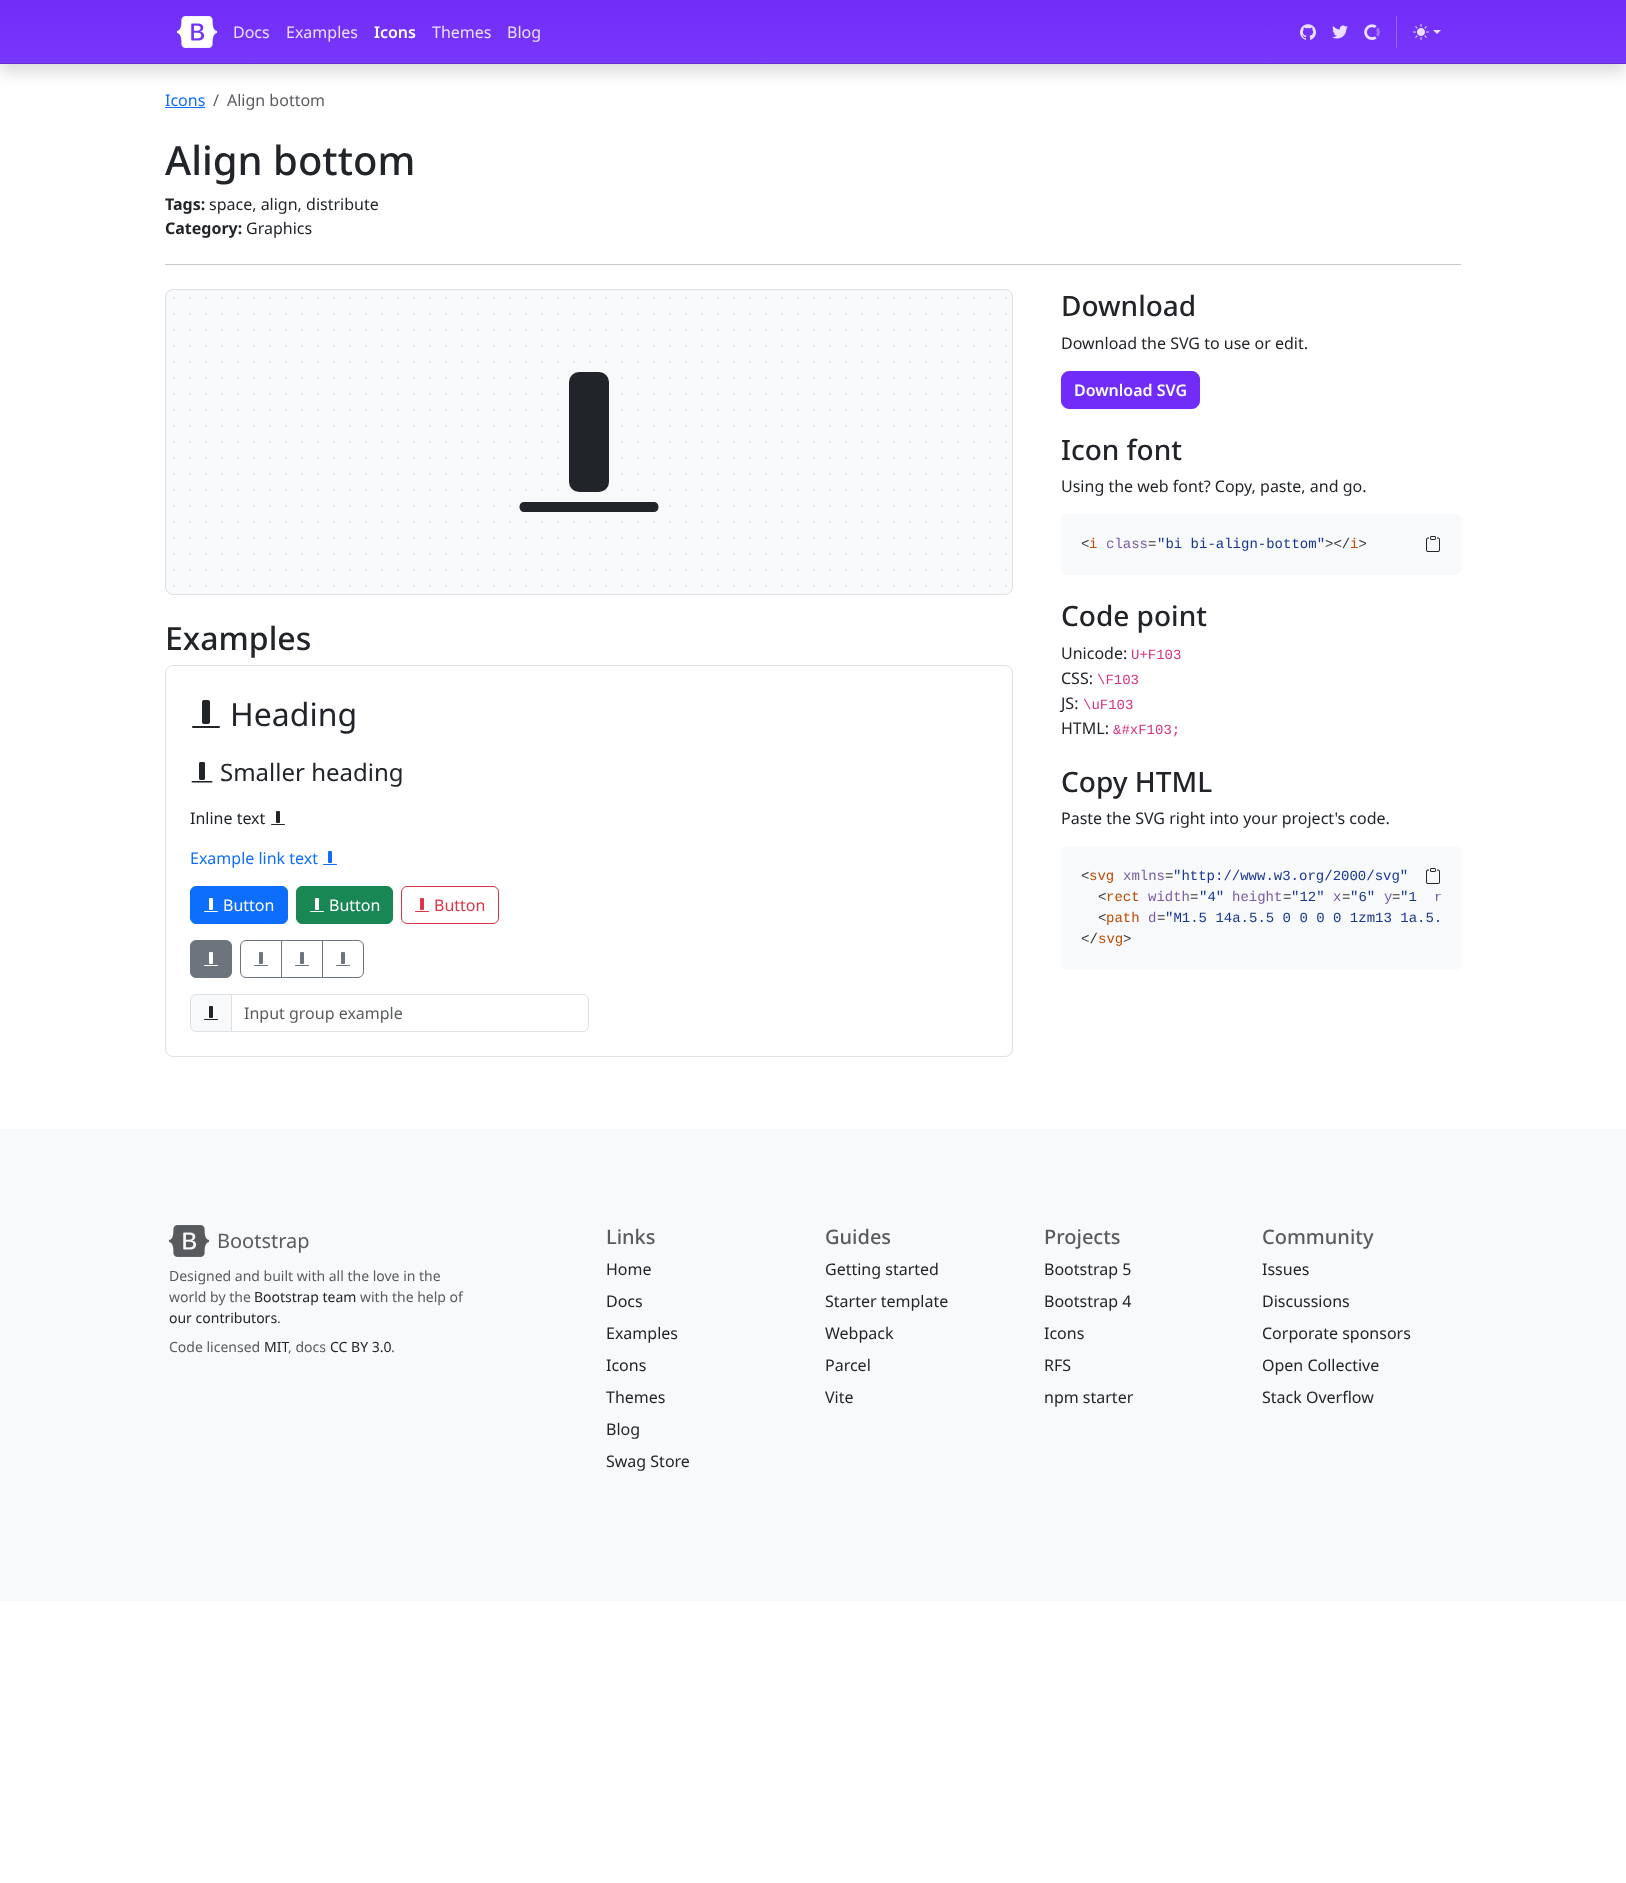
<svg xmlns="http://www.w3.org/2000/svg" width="1626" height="1883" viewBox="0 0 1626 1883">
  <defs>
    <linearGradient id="g1" gradientUnits="userSpaceOnUse" x1="813" y1="0" x2="813" y2="64"><stop offset="0" stop-color="#712cf9"/><stop offset="1" stop-color="#7837f9"/></linearGradient>
    <linearGradient id="g2" gradientUnits="userSpaceOnUse" x1="813" y1="0" x2="813" y2="64"><stop offset="0" stop-color="#9561fb"/><stop offset="1" stop-color="#9a69fb"/></linearGradient>
  </defs>
  <rect width="100%" height="100%" fill="#fff"/>
  <path d="M0 8h1626v64H0z" fill="#00000026" filter="blur(8px)"/>
  <path d="M0 0h1626v63H0z" fill="url(#g1)"/>
  <path d="M1396 16h1v32H1396z" fill="url(#g2)"/>
  <path d="M0 63h1626v1H0z" fill="#662fd4"/>
  <image x="177" y="16" width="40" height="32" href="img/1.png"/>
  <image x="1300" y="24" width="16" height="16" href="img/2.png"/>
  <image x="1332" y="25" width="16" height="14" href="img/3.png"/>
  <image x="1364" y="24" width="16" height="16" href="img/4.png"/>
  <image x="1413" y="24" width="16" height="16" href="img/5.png"/>
  <path d="M1433 30H1441L1437 34Z" fill="#eae0fe"/>
  <path d="M165 107h40v1H165z" fill="#0d6efd"/>
  <path d="M165 264h1296v1H165z" fill="#c8c9ca"/>
  <rect x="165" y="289" width="848" height="306" rx="8" fill="#f8f9fa"/>
  <path d="M174 298H1006.2" fill="none" stroke="#dee2e6" stroke-width="2" stroke-linecap="round" stroke-dasharray="0 16"/>
  <path d="M174 314H1006.2" fill="none" stroke="#dee2e6" stroke-width="2" stroke-linecap="round" stroke-dasharray="0 16"/>
  <path d="M174 330H1006.2" fill="none" stroke="#dee2e6" stroke-width="2" stroke-linecap="round" stroke-dasharray="0 16"/>
  <path d="M174 346H1006.2" fill="none" stroke="#dee2e6" stroke-width="2" stroke-linecap="round" stroke-dasharray="0 16"/>
  <path d="M174 362H1006.2" fill="none" stroke="#dee2e6" stroke-width="2" stroke-linecap="round" stroke-dasharray="0 16"/>
  <path d="M174 378H1006.2" fill="none" stroke="#dee2e6" stroke-width="2" stroke-linecap="round" stroke-dasharray="0 16"/>
  <path d="M174 394H1006.2" fill="none" stroke="#dee2e6" stroke-width="2" stroke-linecap="round" stroke-dasharray="0 16"/>
  <path d="M174 410H1006.2" fill="none" stroke="#dee2e6" stroke-width="2" stroke-linecap="round" stroke-dasharray="0 16"/>
  <path d="M174 426H1006.2" fill="none" stroke="#dee2e6" stroke-width="2" stroke-linecap="round" stroke-dasharray="0 16"/>
  <path d="M174 442H1006.2" fill="none" stroke="#dee2e6" stroke-width="2" stroke-linecap="round" stroke-dasharray="0 16"/>
  <path d="M174 458H1006.2" fill="none" stroke="#dee2e6" stroke-width="2" stroke-linecap="round" stroke-dasharray="0 16"/>
  <path d="M174 474H1006.2" fill="none" stroke="#dee2e6" stroke-width="2" stroke-linecap="round" stroke-dasharray="0 16"/>
  <path d="M174 490H1006.2" fill="none" stroke="#dee2e6" stroke-width="2" stroke-linecap="round" stroke-dasharray="0 16"/>
  <path d="M174 506H1006.2" fill="none" stroke="#dee2e6" stroke-width="2" stroke-linecap="round" stroke-dasharray="0 16"/>
  <path d="M174 522H1006.2" fill="none" stroke="#dee2e6" stroke-width="2" stroke-linecap="round" stroke-dasharray="0 16"/>
  <path d="M174 538H1006.2" fill="none" stroke="#dee2e6" stroke-width="2" stroke-linecap="round" stroke-dasharray="0 16"/>
  <path d="M174 554H1006.2" fill="none" stroke="#dee2e6" stroke-width="2" stroke-linecap="round" stroke-dasharray="0 16"/>
  <path d="M174 570H1006.2" fill="none" stroke="#dee2e6" stroke-width="2" stroke-linecap="round" stroke-dasharray="0 16"/>
  <path d="M174 586H1006.2" fill="none" stroke="#dee2e6" stroke-width="2" stroke-linecap="round" stroke-dasharray="0 16"/>
  <rect x="165.5" y="289.5" width="847" height="305" rx="7.5" fill="none" stroke="#dee2e6"/>
  <rect x="569" y="372" width="40" height="120" rx="10" fill="#212529"/>
  <path d="M524 502C518 502 518 512 524 512ZM654 512C660 512 660 502 654 502ZM524 512H654V502H524Z" fill="#212529"/>
  <rect x="165.5" y="665.5" width="847" height="391" rx="7.5" fill="none" stroke="#dee2e6"/>
  <image x="192" y="700" width="28" height="28" href="img/6.png"/>
  <image x="191" y="762" width="22" height="21" href="img/7.png"/>
  <image x="271" y="811" width="14" height="14" href="img/8.png"/>
  <image x="323" y="851" width="14" height="14" href="img/9.png"/>
  <rect x="190.5" y="886.5" width="97" height="37" rx="5.5" fill="#0d6efd" stroke="#0d6efd"/>
  <image x="204" y="898" width="14" height="14" href="img/10.png"/>
  <rect x="296.5" y="886.5" width="96" height="37" rx="5.5" fill="#198754" stroke="#198754"/>
  <image x="310" y="898" width="14" height="14" href="img/11.png"/>
  <rect x="401.5" y="886.5" width="97" height="37" rx="5.5" fill="none" stroke="#dc3545"/>
  <image x="415" y="898" width="14" height="14" href="img/12.png"/>
  <rect x="190.5" y="940.5" width="41" height="37" rx="5.5" fill="#6c757d" stroke="#6c757d"/>
  <image x="204" y="952" width="14" height="14" href="img/13.png"/>
  <path d="M246 940.5H281.5V977.5H246C243 977.5 240.5 975 240.5 972V946C240.5 943 243 940.5 246 940.5Z" fill="none" stroke="#6c757d"/>
  <image x="254" y="952" width="14" height="14" href="img/14.png"/>
  <path d="M281.5 940.5h41v37H281.5z" fill="none" stroke="#6c757d"/>
  <image x="295" y="952" width="14" height="14" href="img/14.png"/>
  <path d="M322.5 940.5H358C361 940.5 363.5 943 363.5 946V972C363.5 975 361 977.5 358 977.5H322.5Z" fill="none" stroke="#6c757d"/>
  <image x="336" y="952" width="14" height="14" href="img/14.png"/>
  <path d="M196 994.5H231.5V1031.5H196C193 1031.5 190.5 1029 190.5 1026V1000C190.5 997 193 994.5 196 994.5Z" fill="#f8f9fa" stroke="#dee2e6"/>
  <image x="204" y="1006" width="14" height="14" href="img/15.png"/>
  <path d="M231.5 994.5H583C586 994.5 588.5 997 588.5 1000V1026C588.5 1029 586 1031.5 583 1031.5H231.5Z" fill="none" stroke="#dee2e6"/>
  <rect x="1061.5" y="371.5" width="138" height="37" rx="7.5" fill="#712cf9" stroke="#712cf9"/>
  <rect x="1061" y="514" width="400" height="61" rx="6" fill="#f8f9fa"/>
  <image x="1426" y="536" width="14" height="16" href="img/16.png"/>
  <rect x="1061" y="846" width="400" height="124" rx="6" fill="#f8f9fa"/>
  <path d="M0 1129h1626v472H0z" fill="#f8f9fa"/>
  <image x="169" y="1225" width="40" height="32" href="img/17.png"/>
  <g font-family="Noto Sans" font-size="16" fill="#eae0fe">
    <text x="233" y="38">Docs</text>
    <text x="286" y="38">Examples</text>
  </g>
  <text x="374" y="38" font-family="Noto Sans" font-size="16" font-weight="600" fill="#fff">Icons</text>
  <g font-family="Noto Sans" font-size="16" fill="#eae0fe">
    <text x="432" y="38">Themes</text>
    <text x="507" y="38">Blog</text>
  </g>
  <text x="165" y="106" font-family="Noto Sans" font-size="16" fill="#0d6efd">Icons</text>
  <g font-family="Noto Sans" font-size="16" fill="#595c5f">
    <text x="213" y="106">/</text>
    <text x="227" y="106">Align bottom</text>
  </g>
  <text x="165" y="175" font-family="Noto Sans" font-size="40" font-weight="500" fill="#212529">Align bottom</text>
  <text x="165" y="210" font-family="Noto Sans" font-size="16" font-weight="bold" fill="#212529">Tags:</text>
  <text x="209" y="210" font-family="Noto Sans" font-size="16" fill="#212529">space, align, distribute</text>
  <text x="165" y="234" font-family="Noto Sans" font-size="16" font-weight="bold" fill="#212529">Category:</text>
  <text x="246" y="234" font-family="Noto Sans" font-size="16" fill="#212529">Graphics</text>
  <text x="165" y="650" font-family="Noto Sans" font-size="32" font-weight="500" fill="#212529">Examples</text>
  <text x="230" y="726" font-family="Noto Sans" font-size="32" fill="#212529">Heading</text>
  <text x="220" y="781" font-family="Noto Sans" font-size="24" fill="#212529">Smaller heading</text>
  <text x="190" y="824" font-family="Noto Sans" font-size="16" fill="#212529">Inline text</text>
  <text x="190" y="864" font-family="Noto Sans" font-size="16" fill="#0d6efd">Example link text</text>
  <g font-family="Noto Sans" font-size="16" fill="#fff">
    <text x="223" y="911">Button</text>
    <text x="329" y="911">Button</text>
  </g>
  <text x="434" y="911" font-family="Noto Sans" font-size="16" fill="#dc3545">Button</text>
  <text x="244" y="1019" font-family="Noto Sans" font-size="16" fill="#595c5f">Input group example</text>
  <text x="1061" y="316" font-family="Noto Sans" font-size="28" font-weight="500" fill="#212529">Download</text>
  <text x="1061" y="349" font-family="Noto Sans" font-size="16" fill="#212529">Download the SVG to use or edit.</text>
  <text x="1074" y="396" font-family="Noto Sans" font-size="16" font-weight="600" fill="#fff">Download SVG</text>
  <text x="1061" y="460" font-family="Noto Sans" font-size="28" font-weight="500" fill="#212529">Icon font</text>
  <text x="1061" y="492" font-family="Noto Sans" font-size="16" fill="#212529">Using the web font? Copy, paste, and go.</text>
  <text x="1089" y="548" font-family="Liberation Mono" font-size="14" fill="#bc4c00">i</text>
  <text x="1106" y="548" font-family="Liberation Mono" font-size="14" fill="#795da3">class</text>
  <text x="1157" y="548" font-family="Liberation Mono" font-size="14" fill="#183691">"bi bi-align-bottom"</text>
  <g font-family="Liberation Mono" font-size="14" fill="#333">
    <text x="1325" y="548">&gt;&lt;/ &gt;</text>
    <text x="1081" y="548">&lt;</text>
    <text x="1148" y="548">=</text>
  </g>
  <text x="1350" y="548" font-family="Liberation Mono" font-size="14" fill="#bc4c00">i</text>
  <text x="1061" y="626" font-family="Noto Sans" font-size="28" font-weight="500" fill="#212529">Code point</text>
  <text x="1061" y="659" font-family="Noto Sans" font-size="16" fill="#212529">Unicode:</text>
  <text x="1131" y="659" font-family="Liberation Mono" font-size="14" fill="#d63384">U+F103</text>
  <text x="1061" y="684" font-family="Noto Sans" font-size="16" fill="#212529">CSS:</text>
  <text x="1097" y="684" font-family="Liberation Mono" font-size="14" fill="#d63384">\F103</text>
  <text x="1061" y="709" font-family="Noto Sans" font-size="16" fill="#212529">JS:</text>
  <text x="1083" y="709" font-family="Liberation Mono" font-size="14" fill="#d63384">\uF103</text>
  <text x="1061" y="734" font-family="Noto Sans" font-size="16" fill="#212529">HTML:</text>
  <text x="1113" y="734" font-family="Liberation Mono" font-size="14" fill="#d63384">&amp;#xF103;</text>
  <text x="1061" y="792" font-family="Noto Sans" font-size="28" font-weight="500" fill="#212529">Copy HTML</text>
  <text x="1061" y="824" font-family="Noto Sans" font-size="16" fill="#212529">Paste the SVG right into your project's code.</text>
  <text x="1081" y="880" font-family="Liberation Mono" font-size="14" fill="#333">&lt;</text>
  <text x="1089" y="880" font-family="Liberation Mono" font-size="14" fill="#bc4c00">svg</text>
  <text x="1123" y="880" font-family="Liberation Mono" font-size="14" fill="#795da3">xmlns</text>
  <text x="1165" y="880" font-family="Liberation Mono" font-size="14" fill="#333">=</text>
  <text x="1173" y="880" font-family="Liberation Mono" font-size="14" fill="#183691">"http://www.w3.org/2000/svg"</text>
  <text x="1098" y="901" font-family="Liberation Mono" font-size="14" fill="#333">&lt;</text>
  <text x="1106" y="901" font-family="Liberation Mono" font-size="14" fill="#bc4c00">rect</text>
  <text x="1148" y="901" font-family="Liberation Mono" font-size="14" fill="#795da3">width</text>
  <text x="1190" y="901" font-family="Liberation Mono" font-size="14" fill="#333">=</text>
  <text x="1199" y="901" font-family="Liberation Mono" font-size="14" fill="#183691">"4"</text>
  <text x="1232" y="901" font-family="Liberation Mono" font-size="14" fill="#795da3">height</text>
  <text x="1283" y="901" font-family="Liberation Mono" font-size="14" fill="#333">=</text>
  <text x="1291" y="901" font-family="Liberation Mono" font-size="14" fill="#183691">"12"</text>
  <text x="1333" y="901" font-family="Liberation Mono" font-size="14" fill="#795da3">x</text>
  <text x="1342" y="901" font-family="Liberation Mono" font-size="14" fill="#333">=</text>
  <text x="1350" y="901" font-family="Liberation Mono" font-size="14" fill="#183691">"6"</text>
  <text x="1384" y="901" font-family="Liberation Mono" font-size="14" fill="#795da3">y</text>
  <text x="1392" y="901" font-family="Liberation Mono" font-size="14" fill="#333">=</text>
  <text x="1400" y="901" font-family="Liberation Mono" font-size="14" fill="#183691">"1</text>
  <text x="1434" y="901" font-family="Liberation Mono" font-size="14" fill="#795da3">r</text>
  <rect x="1413" y="858" width="40" height="36" rx="4" fill="#f8f9fa"/>
  <image x="1426" y="868" width="14" height="16" href="img/16.png"/>
  <text x="1098" y="922" font-family="Liberation Mono" font-size="14" fill="#333">&lt;</text>
  <text x="1106" y="922" font-family="Liberation Mono" font-size="14" fill="#bc4c00">path</text>
  <text x="1148" y="922" font-family="Liberation Mono" font-size="14" fill="#795da3">d</text>
  <text x="1157" y="922" font-family="Liberation Mono" font-size="14" fill="#333">=</text>
  <text x="1165" y="922" font-family="Liberation Mono" font-size="14" fill="#183691">"M1.5 14a.5.5 0 0 0 0 1zm13 1a.5.</text>
  <text x="1081" y="943" font-family="Liberation Mono" font-size="14" fill="#333">&lt;/</text>
  <text x="1098" y="943" font-family="Liberation Mono" font-size="14" fill="#bc4c00">svg</text>
  <text x="1123" y="943" font-family="Liberation Mono" font-size="14" fill="#333">&gt;</text>
  <text x="217" y="1248" font-family="Noto Sans" font-size="20" fill="#595c5f">Bootstrap</text>
  <g font-family="Noto Sans" font-size="14" fill="#595c5f">
    <text x="169" y="1281">Designed and built with all the love in the</text>
    <text x="169" y="1302">world by the</text>
  </g>
  <text x="254" y="1302" font-family="Noto Sans" font-size="14" fill="#212529">Bootstrap team</text>
  <text x="360" y="1302" font-family="Noto Sans" font-size="14" fill="#595c5f">with the help of</text>
  <text x="169" y="1323" font-family="Noto Sans" font-size="14" fill="#212529">our contributors</text>
  <g font-family="Noto Sans" font-size="14" fill="#595c5f">
    <text x="277" y="1323">.</text>
    <text x="169" y="1352">Code licensed</text>
  </g>
  <text x="264" y="1352" font-family="Noto Sans" font-size="14" fill="#212529">MIT</text>
  <text x="288" y="1352" font-family="Noto Sans" font-size="14" fill="#595c5f">, docs</text>
  <text x="330" y="1352" font-family="Noto Sans" font-size="14" fill="#212529">CC BY 3.0</text>
  <text x="391" y="1352" font-family="Noto Sans" font-size="14" fill="#595c5f">.</text>
  <text x="606" y="1244" font-family="Noto Sans" font-size="20" font-weight="500" fill="#595c5f">Links</text>
  <g font-family="Noto Sans" font-size="16" fill="#212529">
    <text x="606" y="1275">Home</text>
    <text x="606" y="1307">Docs</text>
    <text x="606" y="1339">Examples</text>
    <text x="606" y="1371">Icons</text>
    <text x="606" y="1403">Themes</text>
    <text x="606" y="1435">Blog</text>
    <text x="606" y="1467">Swag Store</text>
  </g>
  <text x="825" y="1244" font-family="Noto Sans" font-size="20" font-weight="500" fill="#595c5f">Guides</text>
  <g font-family="Noto Sans" font-size="16" fill="#212529">
    <text x="825" y="1275">Getting started</text>
    <text x="825" y="1307">Starter template</text>
    <text x="825" y="1339">Webpack</text>
    <text x="825" y="1371">Parcel</text>
    <text x="825" y="1403">Vite</text>
  </g>
  <text x="1044" y="1244" font-family="Noto Sans" font-size="20" font-weight="500" fill="#595c5f">Projects</text>
  <g font-family="Noto Sans" font-size="16" fill="#212529">
    <text x="1044" y="1275">Bootstrap 5</text>
    <text x="1044" y="1307">Bootstrap 4</text>
    <text x="1044" y="1339">Icons</text>
    <text x="1044" y="1371">RFS</text>
    <text x="1044" y="1403">npm starter</text>
  </g>
  <text x="1262" y="1244" font-family="Noto Sans" font-size="20" font-weight="500" fill="#595c5f">Community</text>
  <g font-family="Noto Sans" font-size="16" fill="#212529">
    <text x="1262" y="1275">Issues</text>
    <text x="1262" y="1307">Discussions</text>
    <text x="1262" y="1339">Corporate sponsors</text>
    <text x="1262" y="1371">Open Collective</text>
    <text x="1262" y="1403">Stack Overflow</text>
  </g>
</svg>
